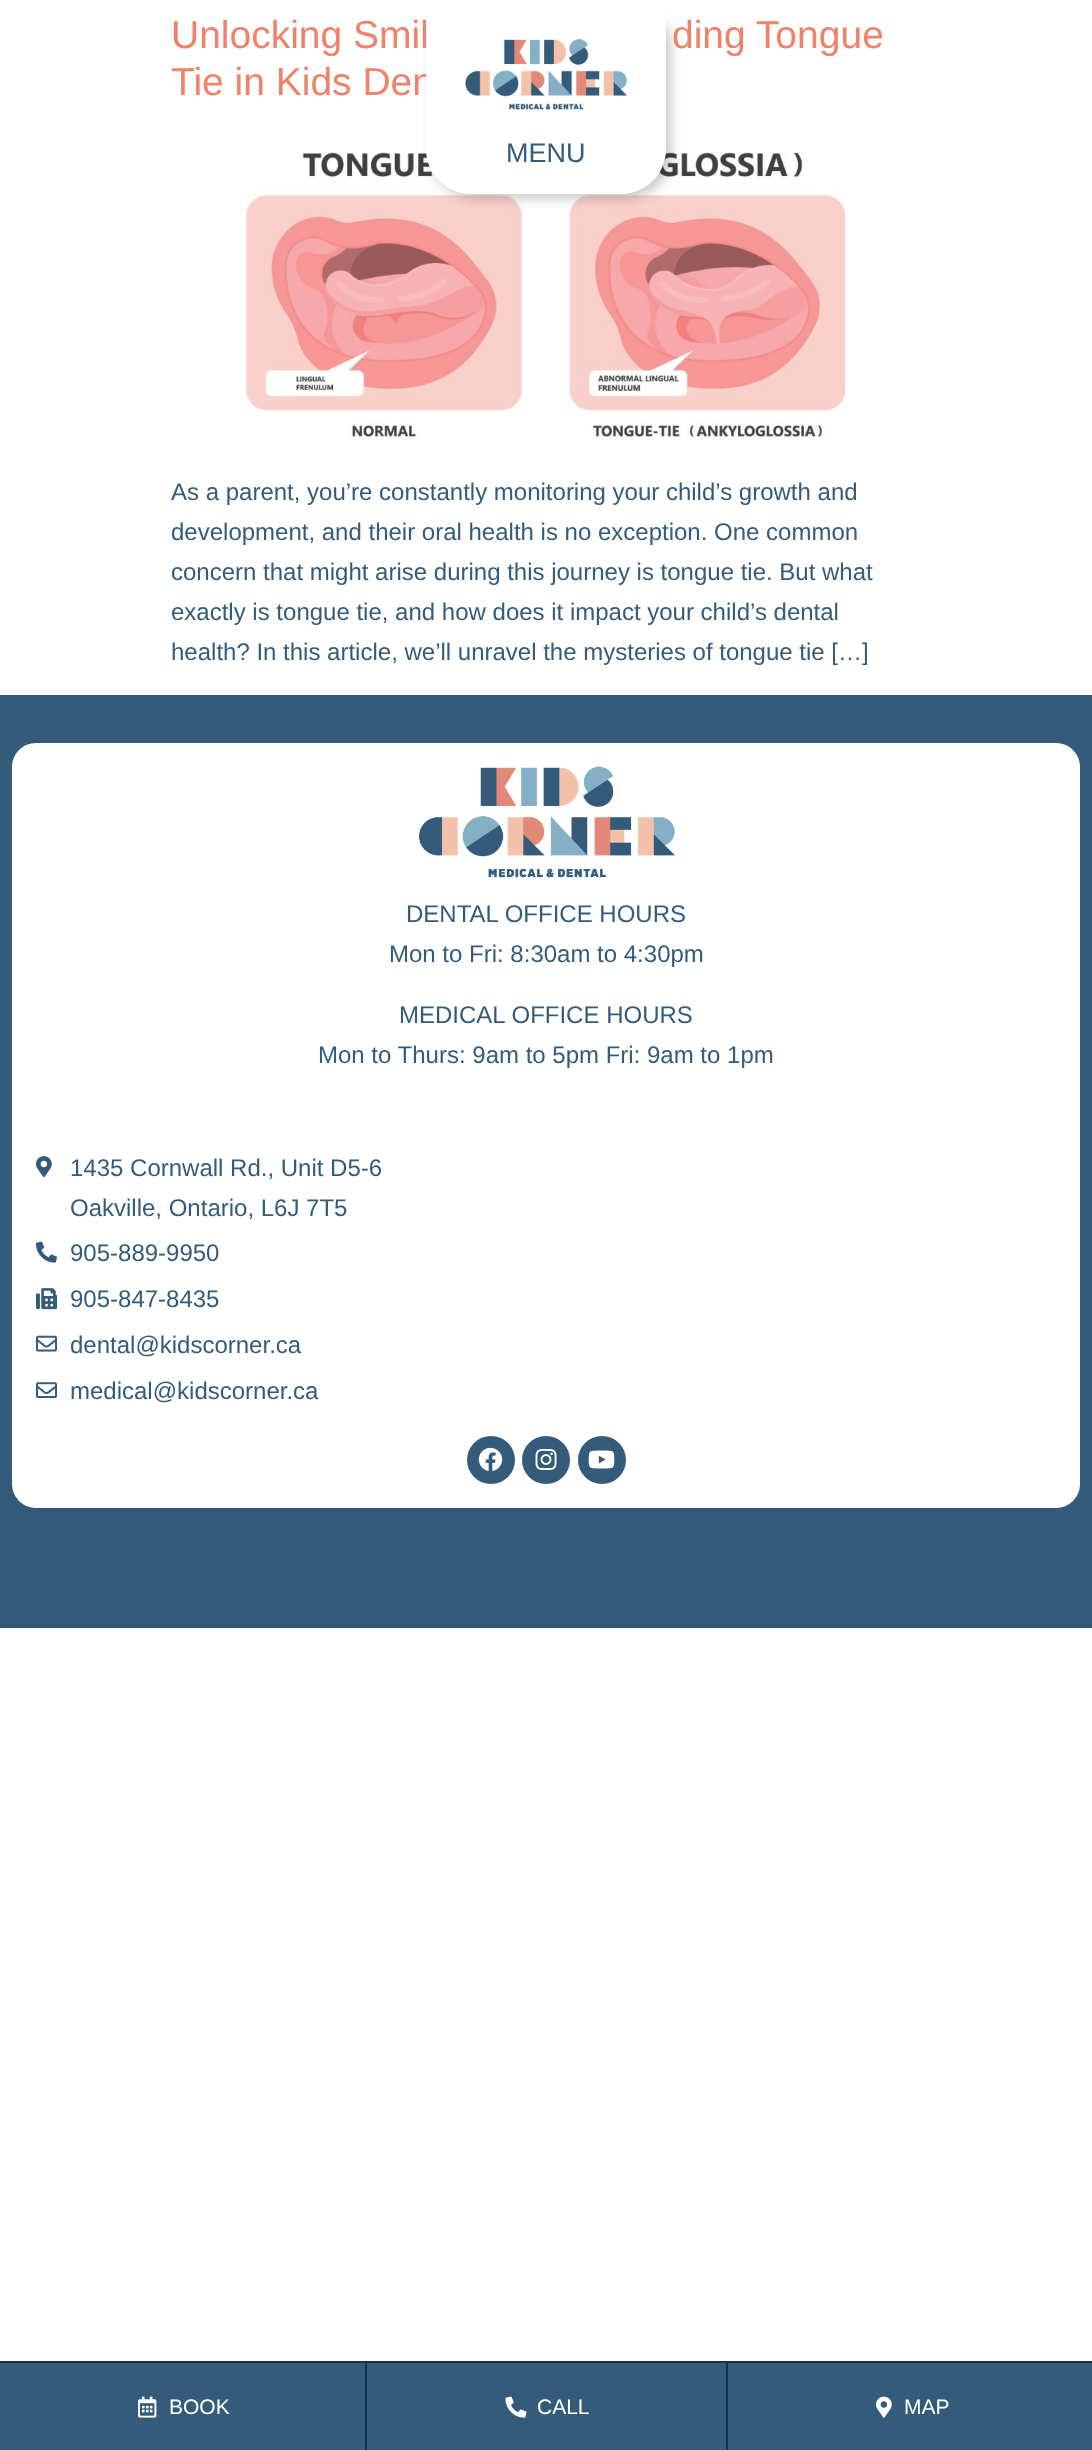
<svg xmlns="http://www.w3.org/2000/svg" width="1092" height="2450" viewBox="0 0 1092 2450">
  <rect width="100%" height="100%" fill="#fff"/>
  <image x="244" y="152" width="607" height="288" href="img/1.png"/>
  <rect x="431" y="5" width="240" height="193" rx="45" fill="#00000038" filter="blur(6px)"/>
  <path d="M0 695h1092v933H0z" fill="#345c7a"/>
  <rect x="12" y="743" width="1068" height="765" rx="24" fill="#fff"/>
  <image x="418" y="766" width="257" height="112" href="img/3.png"/>
  <image x="36" y="1156" width="16" height="22" href="img/4.png"/>
  <image x="36" y="1241" width="21" height="22" href="img/5.png"/>
  <image x="36" y="1288" width="21" height="22" href="img/6.png"/>
  <image x="36" y="1335" width="21" height="17" href="img/7.png"/>
  <image x="36" y="1382" width="21" height="16" href="img/8.png"/>
  <circle cx="491" cy="1460" r="24" fill="#345c7a"/>
  <image x="478" y="1447" width="25" height="24" href="img/9.png"/>
  <circle cx="546" cy="1460" r="24" fill="#345c7a"/>
  <image x="535" y="1448" width="22" height="22" href="img/10.png"/>
  <circle cx="602" cy="1460" r="24" fill="#345c7a"/>
  <image x="588" y="1450" width="27" height="19" href="img/11.png"/>
  <path d="M0 2363h1092v87H0z" fill="#345c7a"/>
  <path d="M0 2361h1092v2H0z" fill="#10334e"/>
  <image x="138" y="2396" width="19" height="22" href="img/12.png"/>
  <path d="M726 2363h2v87H726z" fill="#10334e"/>
  <path d="M365 2363h2v87H365z" fill="#10334e"/>
  <image x="505" y="2396" width="22" height="22" href="img/13.png"/>
  <image x="876" y="2396" width="16" height="22" href="img/14.png"/>
  <g font-family="Liberation Sans" font-size="39" fill="#ee826a">
    <text x="171" y="48">Unlocking Smil</text>
    <text x="672" y="48">ding Tongue</text>
    <text x="171" y="95">Tie in Kids Den</text>
  </g>
  <g font-family="Liberation Sans" font-size="24" fill="#345c7a">
    <text x="171" y="500">As a parent, you’re constantly monitoring your child’s growth and</text>
    <text x="171" y="540">development, and their oral health is no exception. One common</text>
    <text x="171" y="580">concern that might arise during this journey is tongue tie. But what</text>
    <text x="171" y="620">exactly is tongue tie, and how does it impact your child’s dental</text>
    <text x="171" y="660">health? In this article, we’ll unravel the mysteries of tongue tie […]</text>
  </g>
  <path d="M426 0H666V149C666 174 646 194 621 194H471C446 194 426 174 426 149Z" fill="#fff"/>
  <image x="465" y="39" width="162" height="71" href="img/2.png"/>
  <text x="506" y="162" font-family="Liberation Sans" font-size="27" fill="#345c7a">MENU</text>
  <g font-family="Liberation Sans" font-size="24" fill="#345c7a">
    <text x="406" y="922">DENTAL OFFICE HOURS</text>
    <text x="389" y="962">Mon to Fri: 8:30am to 4:30pm</text>
    <text x="399" y="1023">MEDICAL OFFICE HOURS</text>
    <text x="318" y="1063">Mon to Thurs: 9am to 5pm Fri: 9am to 1pm</text>
    <text x="70" y="1176">1435 Cornwall Rd., Unit D5-6</text>
    <text x="70" y="1216">Oakville, Ontario, L6J 7T5</text>
    <text x="70" y="1261">905-889-9950</text>
    <text x="70" y="1307">905-847-8435</text>
    <text x="70" y="1353">dental@kidscorner.ca</text>
    <text x="70" y="1399">medical@kidscorner.ca</text>
  </g>
  <g font-family="Liberation Sans" font-size="21" fill="#fff">
    <text x="169" y="2414">BOOK</text>
    <text x="537" y="2414">CALL</text>
    <text x="904" y="2414">MAP</text>
  </g>
</svg>
